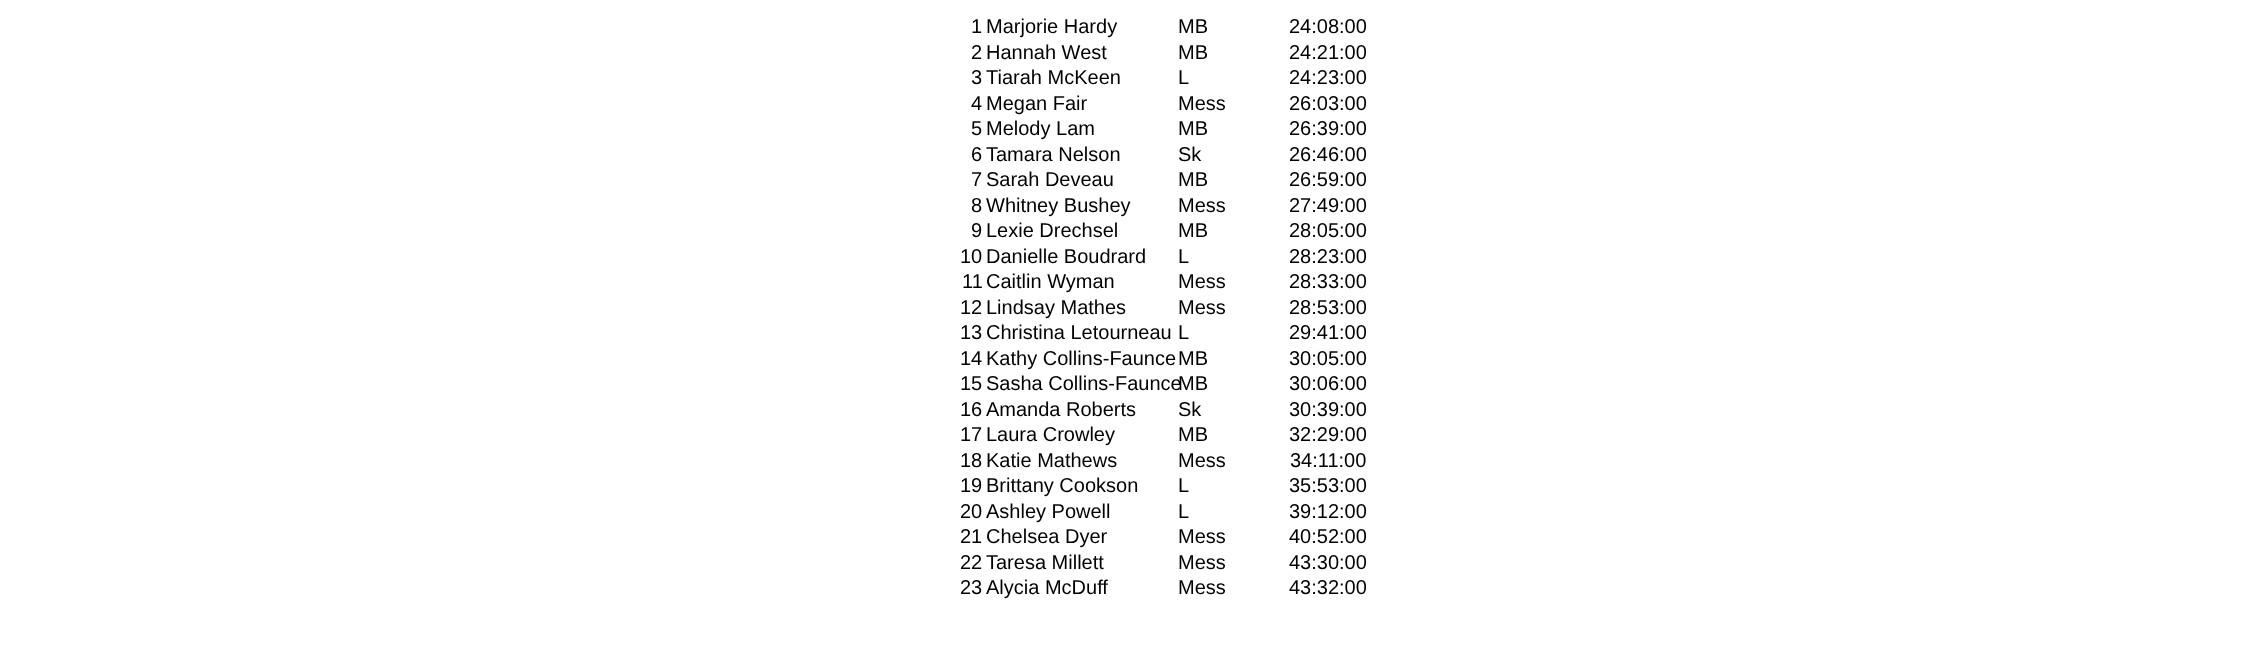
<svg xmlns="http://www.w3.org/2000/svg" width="2256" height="661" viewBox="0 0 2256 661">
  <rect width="100%" height="100%" fill="#fff"/>
  <g font-family="Liberation Sans" font-size="20" fill="#000">
    <text x="971" y="33">1</text>
    <text x="986" y="33">Marjorie Hardy</text>
    <text x="1178" y="33">MB</text>
    <text x="1289" y="33">24:08:00</text>
    <text x="971" y="59">2</text>
    <text x="986" y="59">Hannah West</text>
    <text x="1178" y="59">MB</text>
    <text x="1289" y="59">24:21:00</text>
    <text x="971" y="84">3</text>
    <text x="986" y="84">Tiarah McKeen</text>
    <text x="1178" y="84">L</text>
    <text x="1289" y="84">24:23:00</text>
    <text x="971" y="110">4</text>
    <text x="986" y="110">Megan Fair</text>
    <text x="1178" y="110">Mess</text>
    <text x="1289" y="110">26:03:00</text>
    <text x="971" y="135">5</text>
    <text x="986" y="135">Melody Lam</text>
    <text x="1178" y="135">MB</text>
    <text x="1289" y="135">26:39:00</text>
    <text x="971" y="161">6</text>
    <text x="986" y="161">Tamara Nelson</text>
    <text x="1178" y="161">Sk</text>
    <text x="1289" y="161">26:46:00</text>
    <text x="971" y="186">7</text>
    <text x="986" y="186">Sarah Deveau</text>
    <text x="1178" y="186">MB</text>
    <text x="1289" y="186">26:59:00</text>
    <text x="971" y="212">8</text>
    <text x="986" y="212">Whitney Bushey</text>
    <text x="1178" y="212">Mess</text>
    <text x="1289" y="212">27:49:00</text>
    <text x="971" y="237">9</text>
    <text x="986" y="237">Lexie Drechsel</text>
    <text x="1178" y="237">MB</text>
    <text x="1289" y="237">28:05:00</text>
    <text x="960" y="263">10</text>
    <text x="986" y="263">Danielle Boudrard</text>
    <text x="1178" y="263">L</text>
    <text x="1289" y="263">28:23:00</text>
    <text x="962" y="288">11</text>
    <text x="986" y="288">Caitlin Wyman</text>
    <text x="1178" y="288">Mess</text>
    <text x="1289" y="288">28:33:00</text>
    <text x="960" y="314">12</text>
    <text x="986" y="314">Lindsay Mathes</text>
    <text x="1178" y="314">Mess</text>
    <text x="1289" y="314">28:53:00</text>
    <text x="960" y="339">13</text>
    <text x="986" y="339">Christina Letourneau</text>
    <text x="1178" y="339">L</text>
    <text x="1289" y="339">29:41:00</text>
    <text x="960" y="365">14</text>
    <text x="986" y="365">Kathy Collins-Faunce</text>
    <text x="1178" y="365">MB</text>
    <text x="1289" y="365">30:05:00</text>
    <text x="960" y="390">15</text>
    <text x="986" y="390">Sasha Collins-Faunce</text>
    <text x="1178" y="390">MB</text>
    <text x="1289" y="390">30:06:00</text>
    <text x="960" y="416">16</text>
    <text x="986" y="416">Amanda Roberts</text>
    <text x="1178" y="416">Sk</text>
    <text x="1289" y="416">30:39:00</text>
    <text x="960" y="441">17</text>
    <text x="986" y="441">Laura Crowley</text>
    <text x="1178" y="441">MB</text>
    <text x="1289" y="441">32:29:00</text>
    <text x="960" y="467">18</text>
    <text x="986" y="467">Katie Mathews</text>
    <text x="1178" y="467">Mess</text>
    <text x="1290" y="467">34:11:00</text>
    <text x="960" y="492">19</text>
    <text x="986" y="492">Brittany Cookson</text>
    <text x="1178" y="492">L</text>
    <text x="1289" y="492">35:53:00</text>
    <text x="960" y="518">20</text>
    <text x="986" y="518">Ashley Powell</text>
    <text x="1178" y="518">L</text>
    <text x="1289" y="518">39:12:00</text>
    <text x="960" y="543">21</text>
    <text x="986" y="543">Chelsea Dyer</text>
    <text x="1178" y="543">Mess</text>
    <text x="1289" y="543">40:52:00</text>
    <text x="960" y="569">22</text>
    <text x="986" y="569">Taresa Millett</text>
    <text x="1178" y="569">Mess</text>
    <text x="1289" y="569">43:30:00</text>
    <text x="960" y="594">23</text>
    <text x="986" y="594">Alycia McDuff</text>
    <text x="1178" y="594">Mess</text>
    <text x="1289" y="594">43:32:00</text>
  </g>
</svg>
